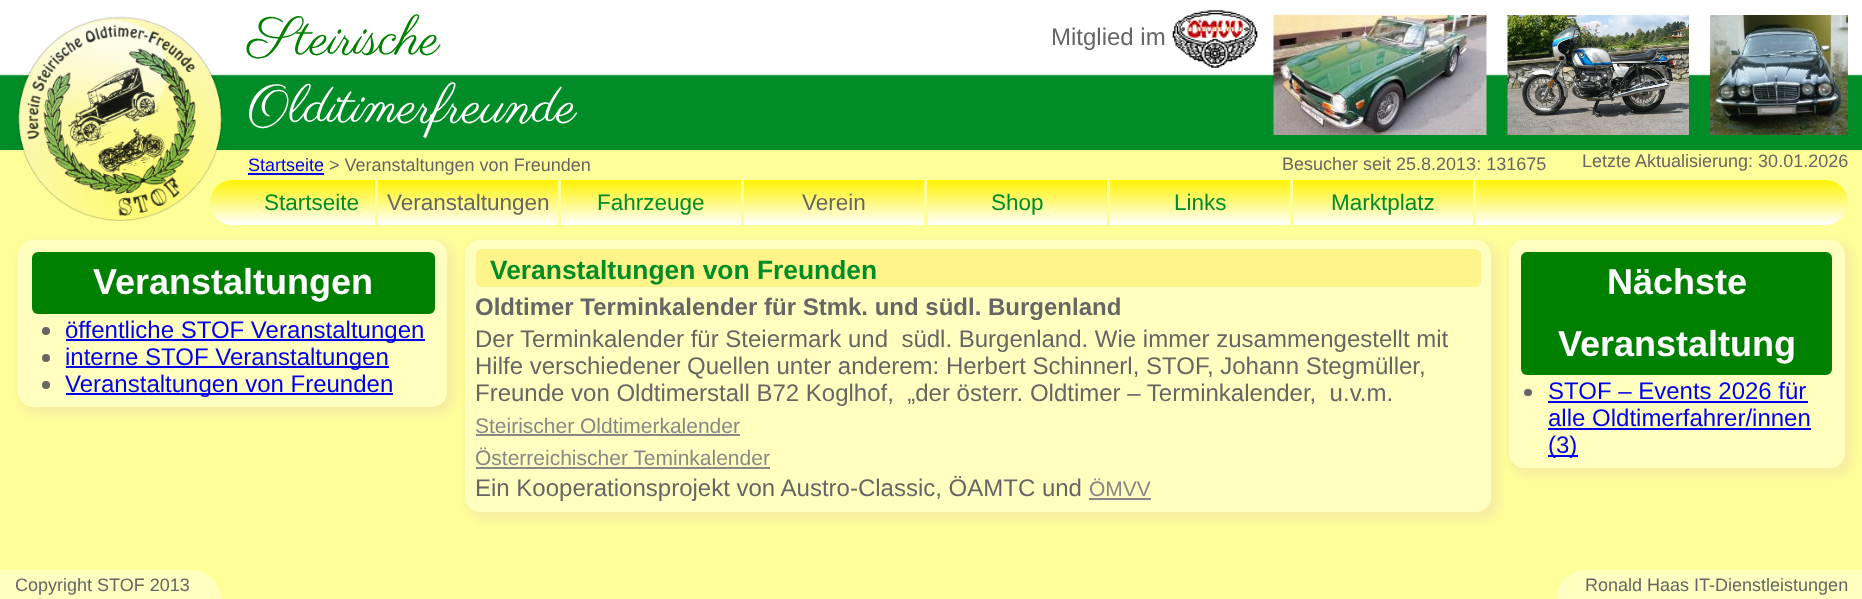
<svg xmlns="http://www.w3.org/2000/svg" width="1862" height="599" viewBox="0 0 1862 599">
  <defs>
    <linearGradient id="g1" gradientUnits="userSpaceOnUse" x1="1029" y1="180" x2="1029" y2="225"><stop offset="0" stop-color="#fff400"/><stop offset="1" stop-color="#fff"/></linearGradient>
  </defs>
  <rect width="100%" height="100%" fill="#ff9"/>
  <image x="0" y="0" width="1862" height="150" href="img/1.png"/>
  <rect x="210" y="180" width="1638" height="45" rx="22.5" fill="url(#g1)"/>
  <image x="18" y="16" width="204" height="205" href="img/2.png"/>
  <image x="1172" y="10" width="86" height="58" href="img/3.png"/>
  <image x="1273" y="15" width="214" height="120" href="img/4.png"/>
  <image x="1507" y="15" width="182" height="120" href="img/5.png"/>
  <image x="1710" y="15" width="138" height="120" href="img/6.png"/>
  <path d="M248 173h76v2H248z" fill="#00e"/>
  <path d="M375 180h3v45H375z" fill="#ff9"/>
  <path d="M558 180h3v45H558z" fill="#ff9"/>
  <path d="M741 180h3v45H741z" fill="#ff9"/>
  <path d="M924 180h3v45H924z" fill="#ff9"/>
  <path d="M1107 180h3v45H1107z" fill="#ff9"/>
  <path d="M1290 180h3v45H1290z" fill="#ff9"/>
  <path d="M1473 180h3v45H1473z" fill="#ff9"/>
  <rect x="18" y="240" width="438" height="176" rx="20" fill="#f4e8a3b3" filter="blur(4px)"/>
  <rect x="18" y="240" width="429" height="167" rx="15" fill="#ffffbf"/>
  <rect x="32" y="252" width="403" height="62" rx="6" fill="#008000"/>
  <circle cx="46" cy="331" r="4" fill="#666"/>
  <path d="M66 339h359v2H66z" fill="#00e"/>
  <circle cx="46" cy="358" r="4" fill="#666"/>
  <path d="M66 366h323v2H66z" fill="#00e"/>
  <circle cx="46" cy="385" r="4" fill="#666"/>
  <path d="M66 393h327v2H66z" fill="#00e"/>
  <rect x="465" y="240" width="1035" height="281" rx="20" fill="#f4e8a3b3" filter="blur(4px)"/>
  <rect x="465" y="240" width="1026" height="272" rx="15" fill="#ffffbf"/>
  <rect x="476" y="249" width="1005" height="38" rx="6" fill="#fef48a"/>
  <path d="M476 434h264v2H476z" fill="#888"/>
  <path d="M476 467h294v2H476z" fill="#888"/>
  <path d="M1089 498h62v2H1089z" fill="#888"/>
  <rect x="1509" y="240" width="345" height="237" rx="20" fill="#f4e8a3b3" filter="blur(4px)"/>
  <rect x="1509" y="240" width="336" height="228" rx="15" fill="#ffffbf"/>
  <rect x="1521" y="252" width="311" height="123" rx="6" fill="#008000"/>
  <rect x="1524" y="389" width="8" height="7" rx="3.5" fill="#666"/>
  <path d="M1548 401h260v2H1548z" fill="#00e"/>
  <path d="M1548 428h263v2H1548z" fill="#00e"/>
  <path d="M1548 455h30v2H1548z" fill="#00e"/>
  <path d="M0 570H191C207.5 570 221 583.5 221 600H0Z" fill="#ffffbf"/>
  <path d="M1586 570H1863V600H1556C1556 583.5 1569.5 570 1586 570Z" fill="#ffffbf"/>
  <text x="248" y="54" font-family="Parisienne" font-size="54" fill="#008000">Steirische</text>
  <text x="248" y="122" font-family="Parisienne" font-size="54" fill="#fff">Olditimerfreunde</text>
  <text x="1051" y="45" font-family="Liberation Sans" font-size="24" fill="#666">Mitglied im</text>
  <text x="248" y="171" font-family="Liberation Sans" font-size="18" fill="#00e">Startseite</text>
  <g font-family="Liberation Sans" font-size="18" fill="#666">
    <text x="329" y="171">&gt; Veranstaltungen von Freunden</text>
    <text x="1282" y="170">Besucher seit 25.8.2013: 131675</text>
    <text x="1582" y="167">Letzte Aktualisierung: 30.01.2026</text>
  </g>
  <text x="264" y="210" font-family="Liberation Sans" font-size="22.5" fill="#008c26">Startseite</text>
  <text x="387" y="210" font-family="Liberation Sans" font-size="22.5" fill="#666">Veranstaltungen</text>
  <text x="597" y="210" font-family="Liberation Sans" font-size="22.5" fill="#008c26">Fahrzeuge</text>
  <text x="802" y="210" font-family="Liberation Sans" font-size="22.5" fill="#666">Verein</text>
  <g font-family="Liberation Sans" font-size="22.5" fill="#008c26">
    <text x="991" y="210">Shop</text>
    <text x="1174" y="210">Links</text>
    <text x="1331" y="210">Marktplatz</text>
  </g>
  <text x="93" y="294" font-family="Liberation Sans" font-size="36" font-weight="bold" fill="#fff">Veranstaltungen</text>
  <g font-family="Liberation Sans" font-size="24" fill="#00e">
    <text x="65" y="338">öffentliche STOF Veranstaltungen</text>
    <text x="65" y="365">interne STOF Veranstaltungen</text>
    <text x="65" y="392">Veranstaltungen von Freunden</text>
  </g>
  <text x="490" y="279" font-family="Liberation Sans" font-size="26.4" font-weight="bold" fill="#008c26">Veranstaltungen von Freunden</text>
  <text x="475" y="315" font-family="Liberation Sans" font-size="24" font-weight="bold" fill="#666">Oldtimer Terminkalender für Stmk. und südl. Burgenland</text>
  <g font-family="Liberation Sans" font-size="24" fill="#666">
    <text x="475" y="347" xml:space="preserve">Der Terminkalender für Steiermark und  südl. Burgenland. Wie immer zusammengestellt mit</text>
    <text x="475" y="374">Hilfe verschiedener Quellen unter anderem: Herbert Schinnerl, STOF, Johann Stegmüller,</text>
    <text x="475" y="401" xml:space="preserve">Freunde von Oldtimerstall B72 Koglhof,  „der österr. Oldtimer – Terminkalender,  u.v.m.</text>
  </g>
  <g font-family="Liberation Sans" font-size="21" fill="#888">
    <text x="475" y="433">Steirischer Oldtimerkalender</text>
    <text x="475" y="465">Österreichischer Teminkalender</text>
  </g>
  <text x="475" y="496" font-family="Liberation Sans" font-size="24" fill="#666">Ein Kooperationsprojekt von Austro-Classic, ÖAMTC und</text>
  <text x="1089" y="496" font-family="Liberation Sans" font-size="21" fill="#888">ÖMVV</text>
  <g font-family="Liberation Sans" font-size="36" font-weight="bold" fill="#fff">
    <text x="1607" y="294">Nächste</text>
    <text x="1558" y="356">Veranstaltung</text>
  </g>
  <g font-family="Liberation Sans" font-size="24" fill="#00e">
    <text x="1548" y="399">STOF – Events 2026 für</text>
    <text x="1548" y="426">alle Oldtimerfahrer/innen</text>
    <text x="1548" y="453">(3)</text>
  </g>
  <g font-family="Liberation Sans" font-size="18" fill="#666">
    <text x="15" y="591">Copyright STOF 2013</text>
    <text x="1585" y="591">Ronald Haas IT-Dienstleistungen</text>
  </g>
</svg>
